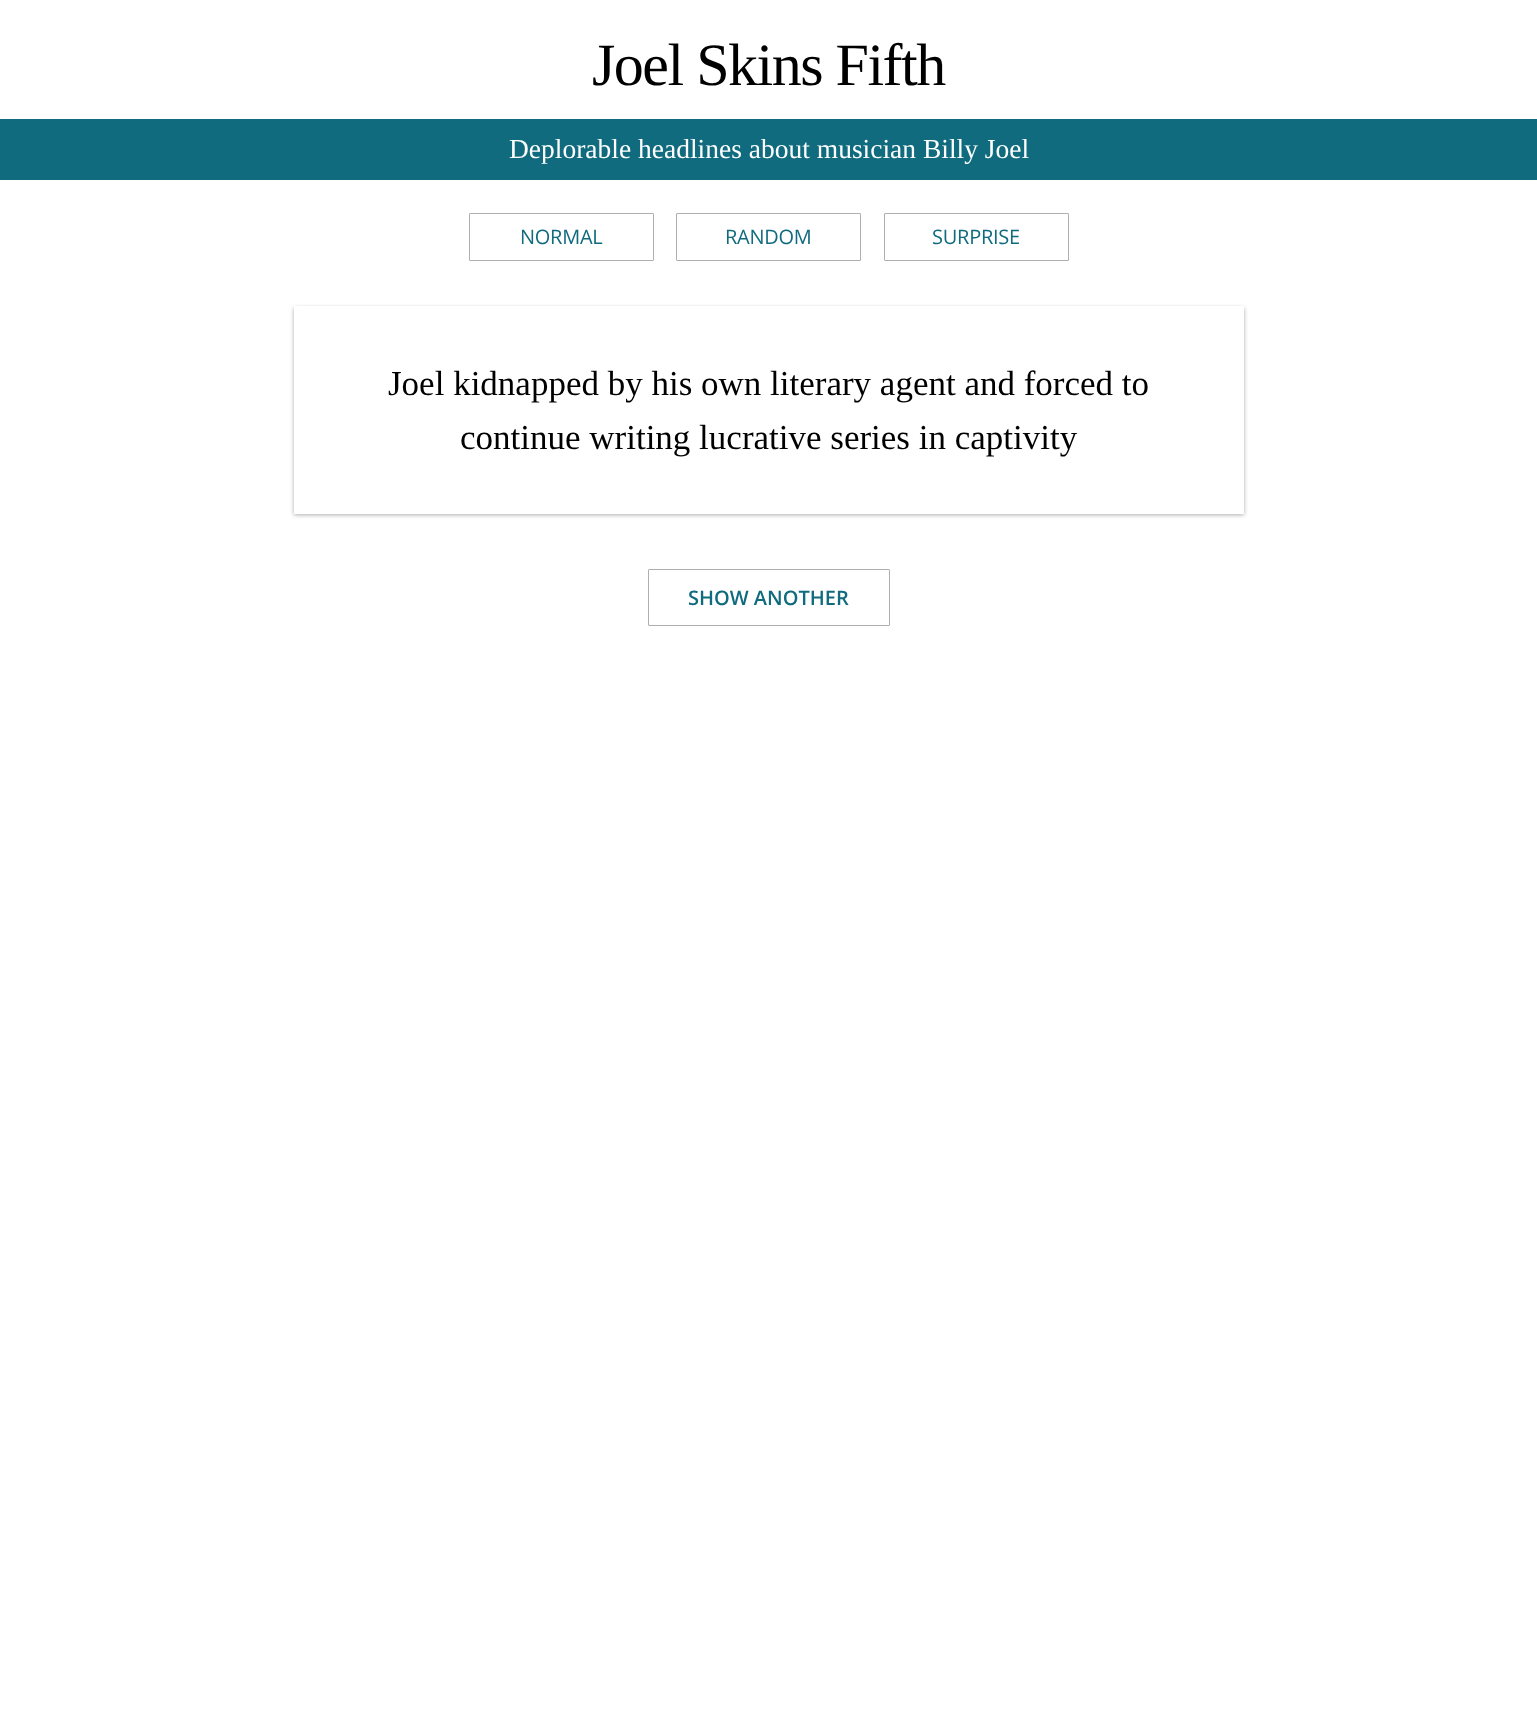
<svg xmlns="http://www.w3.org/2000/svg" width="1537" height="1712" viewBox="0 0 1537 1712">
  <defs>
    <clipPath id="clip1"><path d="M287 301H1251V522H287ZM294 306H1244V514H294Z" clip-rule="evenodd"/></clipPath>
  </defs>
  <rect width="100%" height="100%" fill="#fff"/>
  <path d="M0 119h1537v61H0z" fill="#106b7e"/>
  <rect x="469.5" y="213.5" width="184" height="47" rx="0.5" fill="none" stroke="#afafaf"/>
  <rect x="676.5" y="213.5" width="184" height="47" rx="0.5" fill="none" stroke="#afafaf"/>
  <rect x="884.5" y="213.5" width="184" height="47" rx="0.5" fill="none" stroke="#afafaf"/>
  <g clip-path="url(#clip1)">
    <path d="M294 308h950v207H294z" fill="#33333366" filter="blur(2px)"/>
  </g>
  <rect x="648.5" y="569.5" width="241" height="56" rx="0.5" fill="none" stroke="#afafaf"/>
  <text x="592" y="85" font-family="Liberation Serif" font-size="60" letter-spacing="-1.5" fill="#000">Joel Skins Fifth</text>
  <text x="509" y="158" font-family="Liberation Serif" font-size="27.5" fill="#fff">Deplorable headlines about musician Billy Joel</text>
  <g font-family="Open Sans" font-size="20" letter-spacing="-0.25" fill="#106b7e">
    <text x="520" y="244">NORMAL</text>
    <text x="725" y="244">RANDOM</text>
    <text x="932" y="244">SURPRISE</text>
  </g>
  <g font-family="Liberation Serif" font-size="35" fill="#000">
    <text x="388" y="395">Joel kidnapped by his own literary agent and forced to</text>
    <text x="460" y="449">continue writing lucrative series in captivity</text>
  </g>
  <text x="688" y="605" font-family="Open Sans" font-size="20" font-weight="600" fill="#106b7e">SHOW ANOTHER</text>
</svg>
